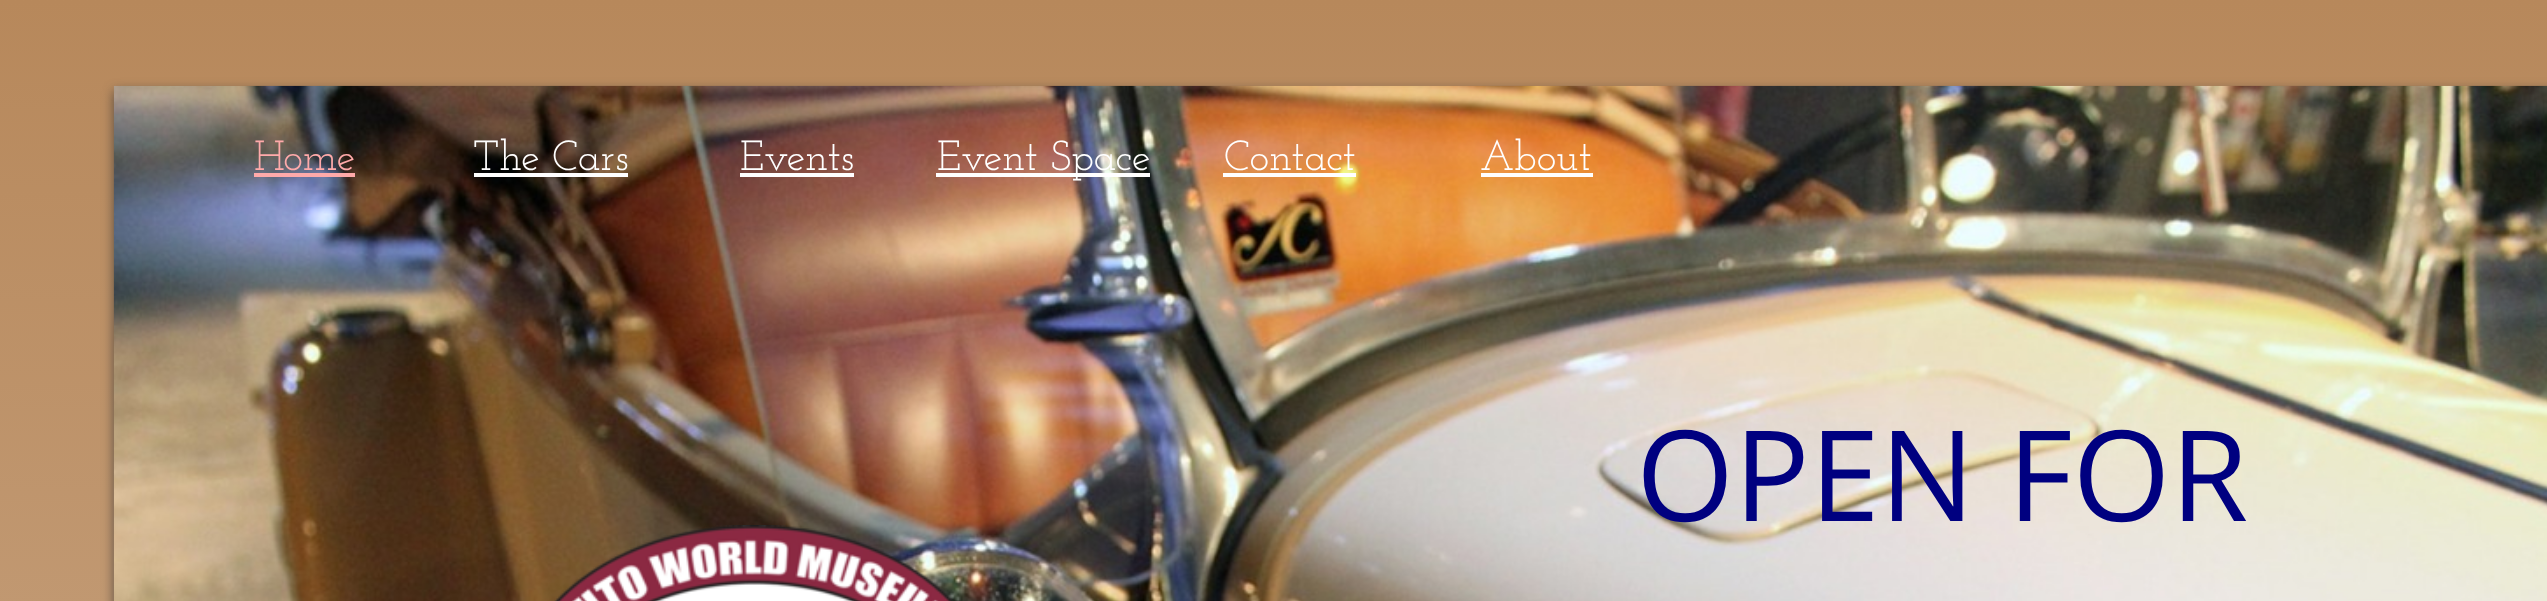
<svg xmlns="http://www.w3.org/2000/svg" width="2547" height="601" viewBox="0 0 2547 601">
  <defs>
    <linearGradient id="g1" gradientUnits="userSpaceOnUse" x1="1274" y1="0" x2="1274" y2="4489"><stop offset="0" stop-color="#b7885b"/><stop offset="1" stop-color="#fff"/></linearGradient>
  </defs>
  <rect width="100%" height="100%" fill="#fff"/>
  <path d="M0 0h2547v601H0z" fill="url(#g1)"/>
  <path d="M114 91h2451v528H114z" fill="#323232bf" filter="blur(6px)"/>
  <image x="113" y="85" width="2434" height="516" href="img/1.png"/>
  <path d="M254 173h101v4H254z" fill="#faa"/>
  <path d="M474 173h154v4H474z" fill="#fff"/>
  <path d="M740 173h114v4H740z" fill="#fff"/>
  <path d="M936 173h214v4H936z" fill="#fff"/>
  <path d="M1223 173h133v4H1223z" fill="#fff"/>
  <path d="M1481 173h112v4H1481z" fill="#fff"/>
  <image x="554" y="525" width="398" height="76" href="img/2.png"/>
  <text x="254" y="170" font-family="Josefin Slab" font-size="42" font-weight="100" fill="#faa">Home</text>
  <g font-family="Josefin Slab" font-size="42" font-weight="100" fill="#fff">
    <text x="473" y="170">The Cars</text>
    <text x="740" y="170">Events</text>
    <text x="937" y="170">Event Space</text>
    <text x="1224" y="170">Contact</text>
    <text x="1480" y="170">About</text>
  </g>
  <text x="1636" y="521" font-family="Open Sans" font-size="126" fill="#000080">OPEN FOR</text>
</svg>
